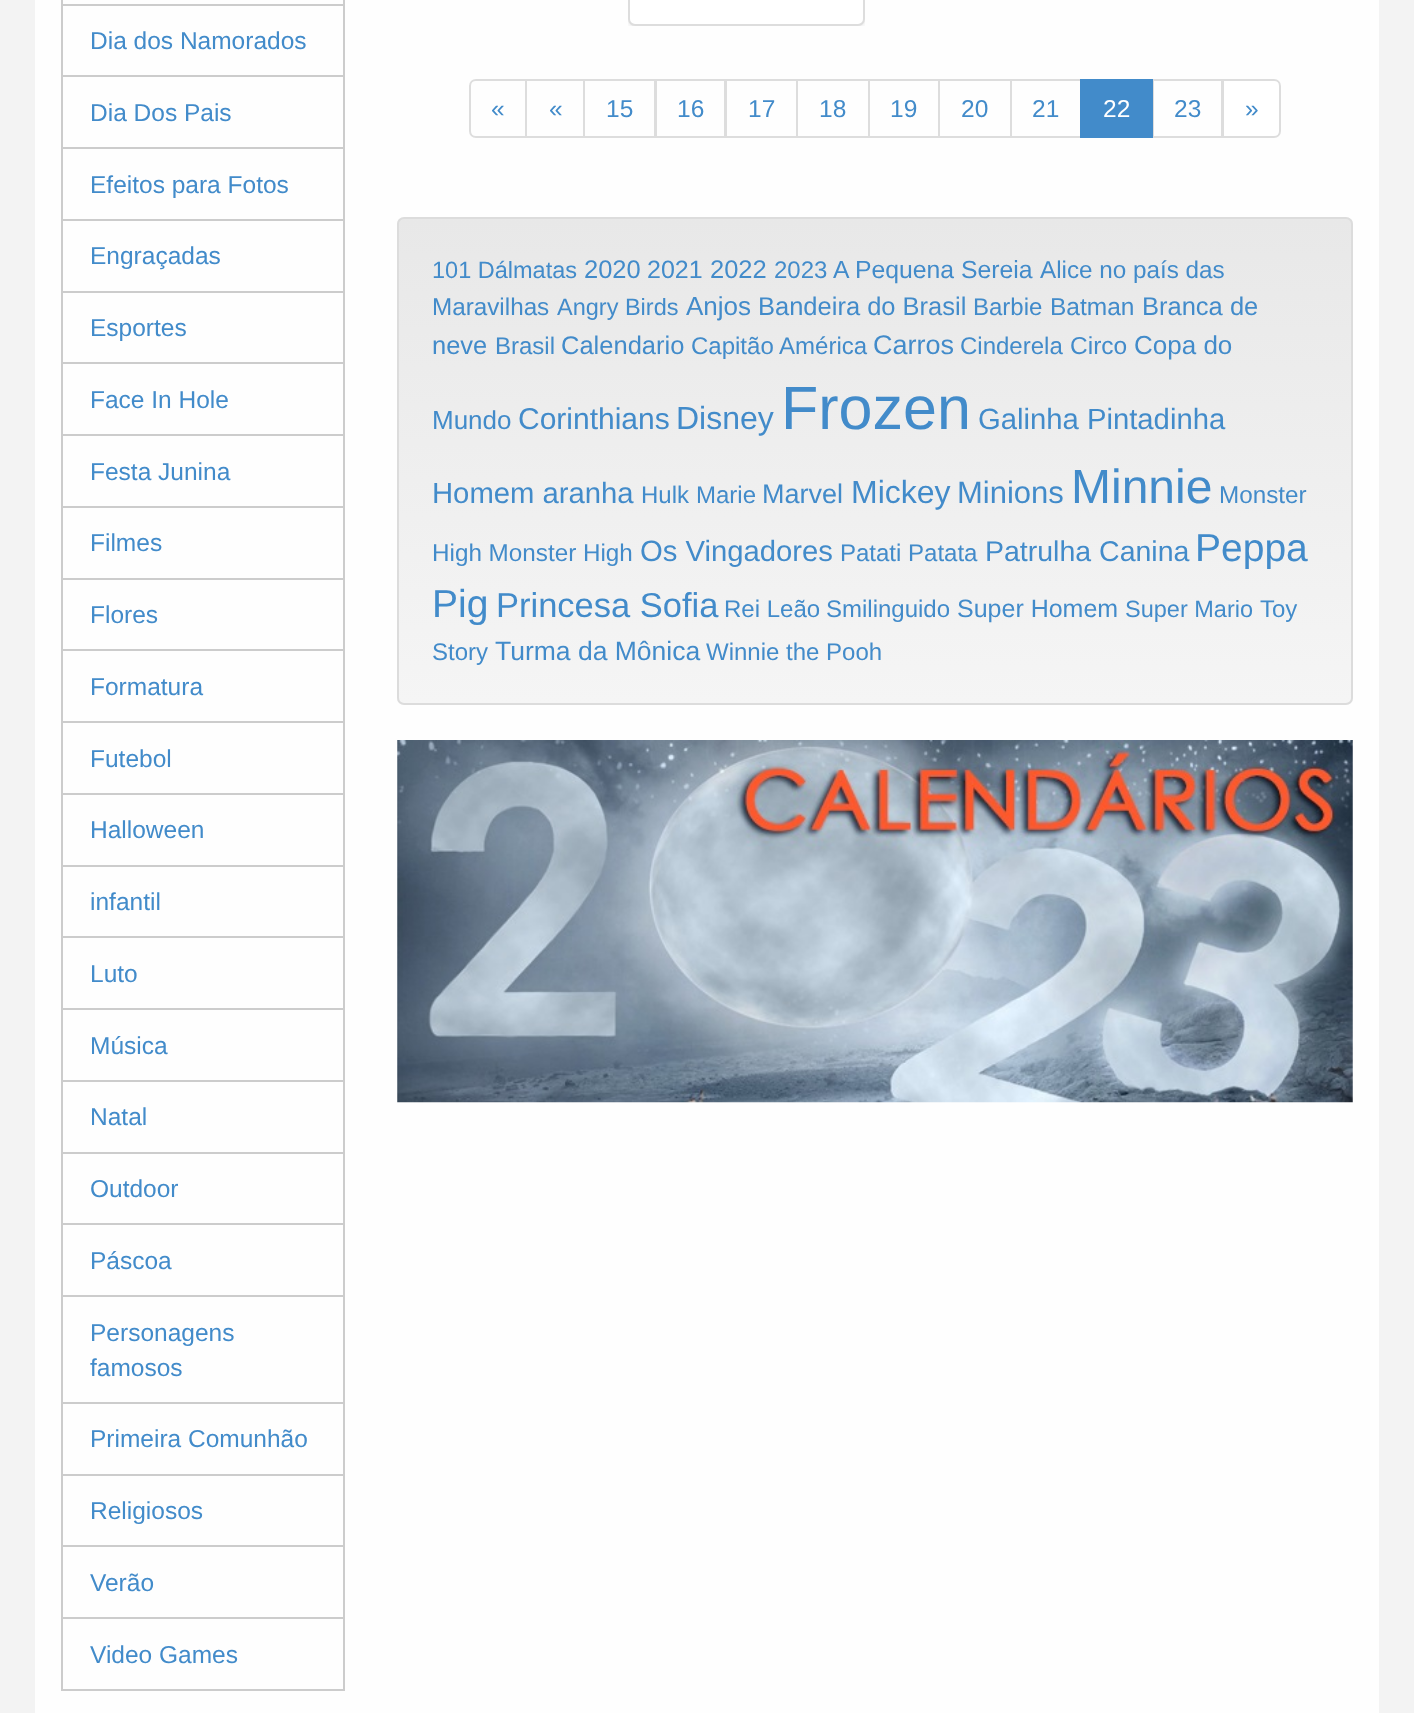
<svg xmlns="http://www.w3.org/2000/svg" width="1414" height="1713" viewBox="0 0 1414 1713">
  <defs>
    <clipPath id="clip1"><path d="M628 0h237v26H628z"/></clipPath>
    <clipPath id="clip2"><rect x="397" y="217" width="956" height="488" rx="7"/></clipPath>
    <linearGradient id="g1" gradientUnits="userSpaceOnUse" x1="875" y1="219" x2="875" y2="704"><stop offset="0" stop-color="#e8e8e8"/><stop offset="1" stop-color="#f5f5f5"/></linearGradient>
  </defs>
  <rect width="100%" height="100%" fill="#f3f3f3"/>
  <path d="M35 0h1344v1713H35z" fill="#fefefe"/>
  <path d="M61 1689h284v2H61z" fill="#ccc"/>
  <path d="M343 0h2v4H343z" fill="#ccc"/>
  <path d="M61 0h2v4H61z" fill="#ccc"/>
  <path d="M61 4h284v2H61z" fill="#ccc"/>
  <path d="M343 4h2v71H343z" fill="#ccc"/>
  <path d="M61 4h2v71H61z" fill="#ccc"/>
  <path d="M61 75h284v2H61z" fill="#ccc"/>
  <path d="M343 75h2v72H343z" fill="#ccc"/>
  <path d="M61 75h2v72H61z" fill="#ccc"/>
  <path d="M61 147h284v2H61z" fill="#ccc"/>
  <path d="M343 147h2v72H343z" fill="#ccc"/>
  <path d="M61 147h2v72H61z" fill="#ccc"/>
  <path d="M61 219h284v2H61z" fill="#ccc"/>
  <path d="M343 219h2v72H343z" fill="#ccc"/>
  <path d="M61 219h2v72H61z" fill="#ccc"/>
  <path d="M61 291h284v2H61z" fill="#ccc"/>
  <path d="M343 291h2v71H343z" fill="#ccc"/>
  <path d="M61 291h2v71H61z" fill="#ccc"/>
  <path d="M61 362h284v2H61z" fill="#ccc"/>
  <path d="M343 362h2v72H343z" fill="#ccc"/>
  <path d="M61 362h2v72H61z" fill="#ccc"/>
  <path d="M61 434h284v2H61z" fill="#ccc"/>
  <path d="M343 434h2v72H343z" fill="#ccc"/>
  <path d="M61 434h2v72H61z" fill="#ccc"/>
  <path d="M61 506h284v2H61z" fill="#ccc"/>
  <path d="M343 506h2v72H343z" fill="#ccc"/>
  <path d="M61 506h2v72H61z" fill="#ccc"/>
  <path d="M61 578h284v2H61z" fill="#ccc"/>
  <path d="M343 578h2v71H343z" fill="#ccc"/>
  <path d="M61 578h2v71H61z" fill="#ccc"/>
  <path d="M61 649h284v2H61z" fill="#ccc"/>
  <path d="M343 649h2v72H343z" fill="#ccc"/>
  <path d="M61 649h2v72H61z" fill="#ccc"/>
  <path d="M61 721h284v2H61z" fill="#ccc"/>
  <path d="M343 721h2v72H343z" fill="#ccc"/>
  <path d="M61 721h2v72H61z" fill="#ccc"/>
  <path d="M61 793h284v2H61z" fill="#ccc"/>
  <path d="M343 793h2v72H343z" fill="#ccc"/>
  <path d="M61 793h2v72H61z" fill="#ccc"/>
  <path d="M61 865h284v2H61z" fill="#ccc"/>
  <path d="M343 865h2v71H343z" fill="#ccc"/>
  <path d="M61 865h2v71H61z" fill="#ccc"/>
  <path d="M61 936h284v2H61z" fill="#ccc"/>
  <path d="M343 936h2v72H343z" fill="#ccc"/>
  <path d="M61 936h2v72H61z" fill="#ccc"/>
  <path d="M61 1008h284v2H61z" fill="#ccc"/>
  <path d="M343 1008h2v72H343z" fill="#ccc"/>
  <path d="M61 1008h2v72H61z" fill="#ccc"/>
  <path d="M61 1080h284v2H61z" fill="#ccc"/>
  <path d="M343 1080h2v72H343z" fill="#ccc"/>
  <path d="M61 1080h2v72H61z" fill="#ccc"/>
  <path d="M61 1152h284v2H61z" fill="#ccc"/>
  <path d="M343 1152h2v71H343z" fill="#ccc"/>
  <path d="M61 1152h2v71H61z" fill="#ccc"/>
  <path d="M61 1223h284v2H61z" fill="#ccc"/>
  <path d="M343 1223h2v72H343z" fill="#ccc"/>
  <path d="M61 1223h2v72H61z" fill="#ccc"/>
  <path d="M61 1295h284v2H61z" fill="#ccc"/>
  <path d="M343 1295h2v107H343z" fill="#ccc"/>
  <path d="M61 1295h2v107H61z" fill="#ccc"/>
  <path d="M61 1402h284v2H61z" fill="#ccc"/>
  <path d="M343 1402h2v72H343z" fill="#ccc"/>
  <path d="M61 1402h2v72H61z" fill="#ccc"/>
  <path d="M61 1474h284v2H61z" fill="#ccc"/>
  <path d="M343 1474h2v71H343z" fill="#ccc"/>
  <path d="M61 1474h2v71H61z" fill="#ccc"/>
  <path d="M61 1545h284v2H61z" fill="#ccc"/>
  <path d="M343 1545h2v72H343z" fill="#ccc"/>
  <path d="M61 1545h2v72H61z" fill="#ccc"/>
  <path d="M61 1617h284v2H61z" fill="#ccc"/>
  <path d="M343 1617h2v72H343z" fill="#ccc"/>
  <path d="M61 1617h2v72H61z" fill="#ccc"/>
  <g clip-path="url(#clip1)">
    <rect x="628" y="-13" width="237" height="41" rx="7" fill="#00000012" filter="blur(2px)"/>
  </g>
  <rect x="629" y="-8" width="235" height="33" rx="6" fill="#fff" stroke="#ddd" stroke-width="2"/>
  <path d="M476 80H526V137H476C472.5 137 470 134.5 470 131V86C470 82.5 472.5 80 476 80Z" fill="none" stroke="#ddd" stroke-width="2"/>
  <path d="M526 80h58v57H526z" fill="none" stroke="#ddd" stroke-width="2"/>
  <path d="M584 80h71v57H584z" fill="none" stroke="#ddd" stroke-width="2"/>
  <path d="M656 80h69v57H656z" fill="none" stroke="#ddd" stroke-width="2"/>
  <path d="M726 80h71v57H726z" fill="none" stroke="#ddd" stroke-width="2"/>
  <path d="M797 80h72v57H797z" fill="none" stroke="#ddd" stroke-width="2"/>
  <path d="M869 80h70v57H869z" fill="none" stroke="#ddd" stroke-width="2"/>
  <path d="M939 80h72v57H939z" fill="none" stroke="#ddd" stroke-width="2"/>
  <path d="M1011 80h70v57H1011z" fill="none" stroke="#ddd" stroke-width="2"/>
  <path d="M1153 80h69v57H1153z" fill="none" stroke="#ddd" stroke-width="2"/>
  <path d="M1080 79h73v59H1080z" fill="#428bca"/>
  <path d="M1223 80H1274C1277.5 80 1280 82.5 1280 86V131C1280 134.5 1277.5 137 1274 137H1223Z" fill="#fff" stroke="#ddd" stroke-width="2"/>
  <g clip-path="url(#clip2)">
    <path d="M397 219h956v485H397z" fill="url(#g1)"/>
  </g>
  <rect x="398" y="218" width="954" height="486" rx="6" fill="none" stroke="#dcdcdc" stroke-width="2"/>
  <image x="397" y="740" width="956" height="363" href="img/1.png"/>
  <g font-family="Liberation Sans" font-size="24.5" fill="#428bca">
    <text x="90" y="49">Dia dos Namorados</text>
    <text x="90" y="121">Dia Dos Pais</text>
    <text x="90" y="193">Efeitos para Fotos</text>
    <text x="90" y="264">Engraçadas</text>
    <text x="90" y="336">Esportes</text>
    <text x="90" y="408">Face In Hole</text>
    <text x="90" y="480">Festa Junina</text>
    <text x="90" y="551">Filmes</text>
    <text x="90" y="623">Flores</text>
    <text x="90" y="695">Formatura</text>
    <text x="90" y="767">Futebol</text>
    <text x="90" y="838">Halloween</text>
    <text x="90" y="910">infantil</text>
    <text x="90" y="982">Luto</text>
    <text x="90" y="1054">Música</text>
    <text x="90" y="1125">Natal</text>
    <text x="90" y="1197">Outdoor</text>
    <text x="90" y="1269">Páscoa</text>
    <text x="90" y="1341">Personagens</text>
    <text x="90" y="1376">famosos</text>
    <text x="90" y="1447">Primeira Comunhão</text>
    <text x="90" y="1519">Religiosos</text>
    <text x="90" y="1591">Verão</text>
    <text x="90" y="1663">Video Games</text>
    <text x="491" y="117">«</text>
    <text x="549" y="117">«</text>
    <text x="606" y="117">15</text>
    <text x="677" y="117">16</text>
    <text x="748" y="117">17</text>
    <text x="819" y="117">18</text>
    <text x="890" y="117">19</text>
    <text x="961" y="117">20</text>
    <text x="1032" y="117">21</text>
  </g>
  <text x="1103" y="117" font-family="Liberation Sans" font-size="24.5" fill="#fff">22</text>
  <g font-family="Liberation Sans" font-size="24.5" fill="#428bca">
    <text x="1174" y="117">23</text>
    <text x="1245" y="117">»</text>
  </g>
  <text x="432" y="278" font-family="Liberation Sans" font-size="23.5" fill="#428bca">101 Dálmatas</text>
  <text x="584" y="278" font-family="Liberation Sans" font-size="25.5" fill="#428bca">2020</text>
  <text x="647" y="278" font-family="Liberation Sans" font-size="25" fill="#428bca">2021</text>
  <text x="710" y="278" font-family="Liberation Sans" font-size="25.5" fill="#428bca">2022</text>
  <text x="774" y="278" font-family="Liberation Sans" font-size="24" fill="#428bca">2023</text>
  <text x="833" y="278" font-family="Liberation Sans" font-size="24.75" fill="#428bca">A Pequena Sereia</text>
  <g font-family="Liberation Sans" font-size="24.25" fill="#428bca">
    <text x="1040" y="278">Alice no país das</text>
    <text x="432" y="315">Maravilhas</text>
  </g>
  <text x="557" y="315" font-family="Liberation Sans" font-size="23.5" fill="#428bca">Angry Birds</text>
  <text x="686" y="315" font-family="Liberation Sans" font-size="26" fill="#428bca">Anjos</text>
  <text x="758" y="315" font-family="Liberation Sans" font-size="25.5" fill="#428bca">Bandeira do Brasil</text>
  <text x="973" y="315" font-family="Liberation Sans" font-size="24" fill="#428bca">Barbie</text>
  <text x="1050" y="315" font-family="Liberation Sans" font-size="24.5" fill="#428bca">Batman</text>
  <g font-family="Liberation Sans" font-size="25.5" fill="#428bca">
    <text x="1142" y="315">Branca de</text>
    <text x="432" y="354">neve</text>
  </g>
  <text x="495" y="354" font-family="Liberation Sans" font-size="24" fill="#428bca">Brasil</text>
  <text x="561" y="354" font-family="Liberation Sans" font-size="25.5" fill="#428bca">Calendario</text>
  <text x="691" y="354" font-family="Liberation Sans" font-size="24" fill="#428bca">Capitão América</text>
  <text x="873" y="354" font-family="Liberation Sans" font-size="27" fill="#428bca">Carros</text>
  <text x="960" y="354" font-family="Liberation Sans" font-size="24" fill="#428bca">Cinderela</text>
  <text x="1070" y="354" font-family="Liberation Sans" font-size="24.5" fill="#428bca">Circo</text>
  <g font-family="Liberation Sans" font-size="26" fill="#428bca">
    <text x="1134" y="354">Copa do</text>
    <text x="432" y="429">Mundo</text>
  </g>
  <text x="518" y="429" font-family="Liberation Sans" font-size="30" fill="#428bca">Corinthians</text>
  <text x="676" y="429" font-family="Liberation Sans" font-size="32" fill="#428bca">Disney</text>
  <text x="781" y="429" font-family="Liberation Sans" font-size="61" fill="#428bca">Frozen</text>
  <g font-family="Liberation Sans" font-size="29.25" fill="#428bca">
    <text x="978" y="429">Galinha Pintadinha</text>
    <text x="432" y="503">Homem aranha</text>
  </g>
  <g font-family="Liberation Sans" font-size="24" fill="#428bca">
    <text x="641" y="503">Hulk</text>
    <text x="696" y="503">Marie</text>
  </g>
  <text x="762" y="503" font-family="Liberation Sans" font-size="27" fill="#428bca">Marvel</text>
  <text x="851" y="503" font-family="Liberation Sans" font-size="32" fill="#428bca">Mickey</text>
  <text x="957" y="503" font-family="Liberation Sans" font-size="31" fill="#428bca">Minions</text>
  <text x="1071" y="503" font-family="Liberation Sans" font-size="48" fill="#428bca">Minnie</text>
  <g font-family="Liberation Sans" font-size="24.25" fill="#428bca">
    <text x="1219" y="503">Monster</text>
    <text x="432" y="561">High Monster High</text>
  </g>
  <text x="640" y="561" font-family="Liberation Sans" font-size="29.25" fill="#428bca">Os Vingadores</text>
  <text x="840" y="561" font-family="Liberation Sans" font-size="24" fill="#428bca">Patati Patata</text>
  <text x="985" y="561" font-family="Liberation Sans" font-size="28.5" fill="#428bca">Patrulha Canina</text>
  <g font-family="Liberation Sans" font-size="39" fill="#428bca">
    <text x="1195" y="561">Peppa</text>
    <text x="432" y="617">Pig</text>
  </g>
  <text x="496" y="617" font-family="Liberation Sans" font-size="34.5" fill="#428bca">Princesa Sofia</text>
  <g font-family="Liberation Sans" font-size="24" fill="#428bca">
    <text x="724" y="617">Rei Leão</text>
    <text x="826" y="617">Smilinguido</text>
  </g>
  <text x="957" y="617" font-family="Liberation Sans" font-size="25" fill="#428bca">Super Homem</text>
  <text x="1125" y="617" font-family="Liberation Sans" font-size="23.5" fill="#428bca">Super Mario</text>
  <g font-family="Liberation Sans" font-size="24" fill="#428bca">
    <text x="1260" y="617">Toy</text>
    <text x="432" y="660">Story</text>
  </g>
  <text x="495" y="660" font-family="Liberation Sans" font-size="26.5" fill="#428bca">Turma da Mônica</text>
  <text x="706" y="660" font-family="Liberation Sans" font-size="24" fill="#428bca">Winnie the Pooh</text>
</svg>
